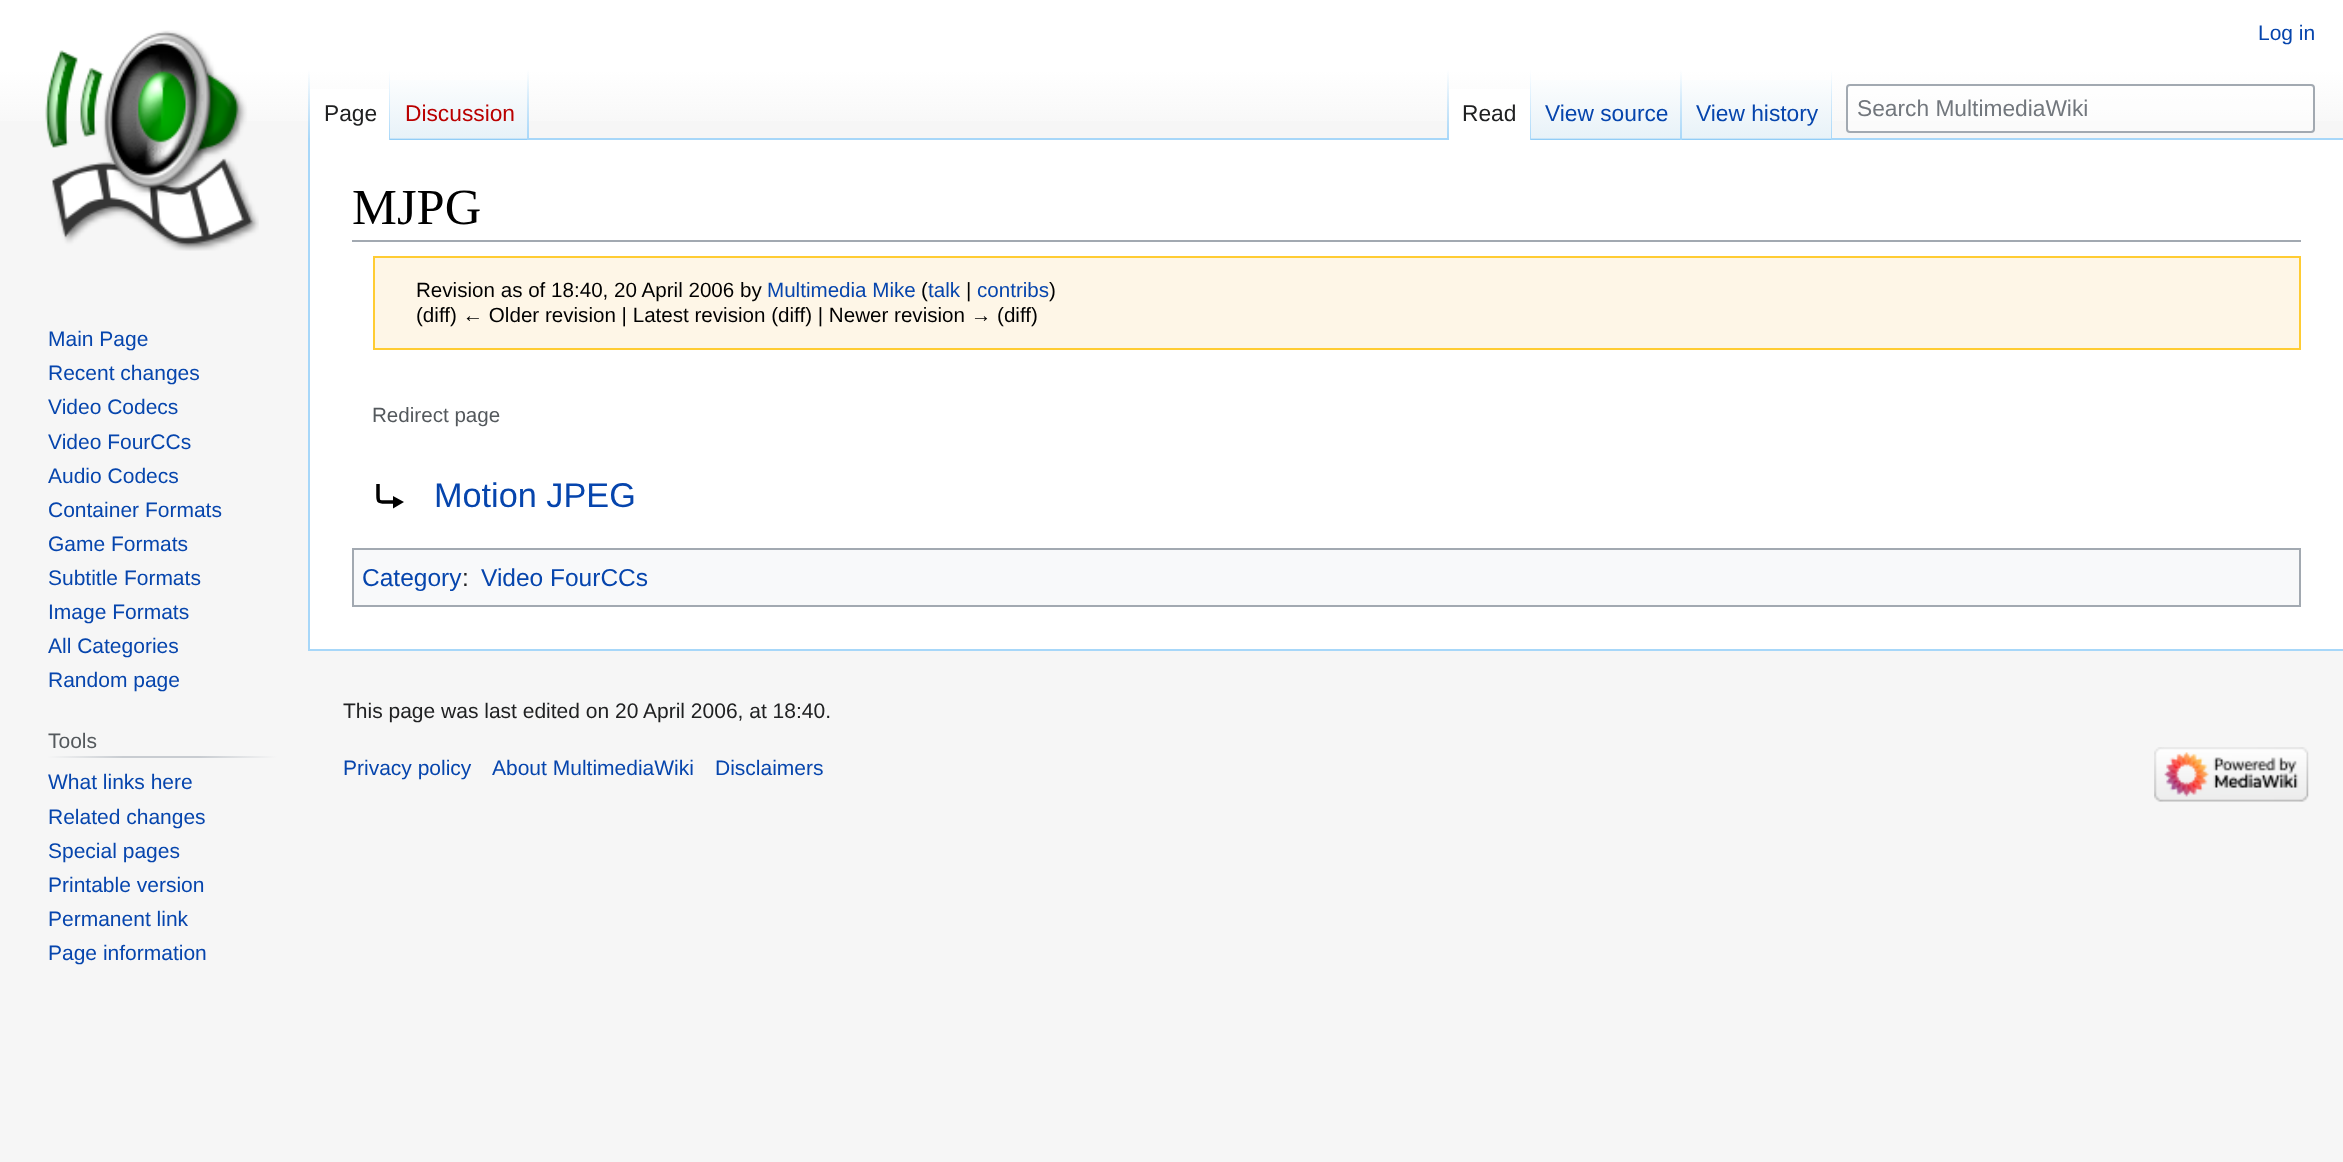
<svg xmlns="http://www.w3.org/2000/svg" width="2343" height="1162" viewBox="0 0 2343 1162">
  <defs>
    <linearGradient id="g1" gradientUnits="userSpaceOnUse" x1="1172" y1="0" x2="1172" y2="140"><stop offset="0.5" stop-color="#fff"/><stop offset="1" stop-color="#f6f6f6"/></linearGradient>
    <linearGradient id="g2" gradientUnits="userSpaceOnUse" x1="309" y1="70" x2="309" y2="140"><stop offset="0" stop-color="#a7d7f9" stop-opacity="0"/><stop offset="1" stop-color="#a7d7f9"/></linearGradient>
    <linearGradient id="g3" gradientUnits="userSpaceOnUse" x1="389" y1="70" x2="389" y2="140"><stop offset="0" stop-color="#fff"/><stop offset="1" stop-color="#a7d7f9"/></linearGradient>
    <linearGradient id="g4" gradientUnits="userSpaceOnUse" x1="459" y1="140" x2="459" y2="70"><stop offset="0" stop-color="#77c1f6"/><stop offset="0.03" stop-color="#e8f2f8"/><stop offset="1" stop-color="#fff"/></linearGradient>
    <linearGradient id="g5" gradientUnits="userSpaceOnUse" x1="528" y1="70" x2="528" y2="140"><stop offset="0" stop-color="#a7d7f9" stop-opacity="0"/><stop offset="1" stop-color="#a7d7f9"/></linearGradient>
    <linearGradient id="g6" gradientUnits="userSpaceOnUse" x1="1448" y1="70" x2="1448" y2="140"><stop offset="0" stop-color="#a7d7f9" stop-opacity="0"/><stop offset="1" stop-color="#a7d7f9"/></linearGradient>
    <linearGradient id="g7" gradientUnits="userSpaceOnUse" x1="1530" y1="70" x2="1530" y2="140"><stop offset="0" stop-color="#fff"/><stop offset="1" stop-color="#a7d7f9"/></linearGradient>
    <linearGradient id="g8" gradientUnits="userSpaceOnUse" x1="1607" y1="140" x2="1607" y2="70"><stop offset="0" stop-color="#77c1f6"/><stop offset="0.03" stop-color="#e8f2f8"/><stop offset="1" stop-color="#fff"/></linearGradient>
    <linearGradient id="g9" gradientUnits="userSpaceOnUse" x1="1681" y1="70" x2="1681" y2="140"><stop offset="0" stop-color="#a7d7f9" stop-opacity="0"/><stop offset="1" stop-color="#a7d7f9"/></linearGradient>
    <linearGradient id="g10" gradientUnits="userSpaceOnUse" x1="1757" y1="140" x2="1757" y2="70"><stop offset="0" stop-color="#77c1f6"/><stop offset="0.03" stop-color="#e8f2f8"/><stop offset="1" stop-color="#fff"/></linearGradient>
    <linearGradient id="g11" gradientUnits="userSpaceOnUse" x1="1831" y1="70" x2="1831" y2="140"><stop offset="0" stop-color="#a7d7f9" stop-opacity="0"/><stop offset="1" stop-color="#a7d7f9"/></linearGradient>
    <linearGradient id="g12" gradientUnits="userSpaceOnUse" x1="47" y1="757" x2="277" y2="757"><stop offset="0" stop-color="#f6f6f6"/><stop offset="0.33" stop-color="#c8ccd1"/><stop offset="0.66" stop-color="#c8ccd1"/><stop offset="1" stop-color="#f6f6f6"/></linearGradient>
  </defs>
  <rect width="100%" height="100%" fill="#f6f6f6"/>
  <path d="M0 0h2343v121H0z" fill="url(#g1)"/>
  <path d="M308 649h2035v2H308z" fill="#a7d7f9"/>
  <path d="M308 138h2v513H308z" fill="#a7d7f9"/>
  <path d="M308 70h2v70H308z" fill="url(#g2)"/>
  <path d="M310 89h79v51H310z" fill="#fff"/>
  <path d="M389 70h1v70H389z" fill="url(#g3)"/>
  <path d="M390 80h139v60H390z" fill="url(#g4)"/>
  <path d="M527 70h2v70H527z" fill="url(#g5)"/>
  <path d="M529 138h1814v2H529z" fill="#a7d7f9"/>
  <path d="M1447 70h2v70H1447z" fill="url(#g6)"/>
  <path d="M1449 89h81v51H1449z" fill="#fff"/>
  <path d="M1530 70h1v70H1530z" fill="url(#g7)"/>
  <path d="M1531 80h151v60H1531z" fill="url(#g8)"/>
  <path d="M1680 70h2v70H1680z" fill="url(#g9)"/>
  <path d="M1682 80h150v60H1682z" fill="url(#g10)"/>
  <path d="M1831 70h1v70H1831z" fill="url(#g11)"/>
  <rect x="1847" y="85" width="467" height="47" rx="3" fill="#ffffff80" stroke="#a2a9b1" stroke-width="2"/>
  <image x="45" y="30" width="214" height="221" href="img/1.png"/>
  <path d="M47 756h230v2H47z" fill="url(#g12)"/>
  <path d="M310 140h2033v509H310z" fill="#fff"/>
  <path d="M352 240h1949v2H352z" fill="#a2a9b1"/>
  <path d="M374 257h1926v92H374z" fill="#fef6e7" stroke="#fc3" stroke-width="2"/>
  <path d="M378 484V494C378 501 377.5 502 385 502H397" fill="none" stroke="#000" stroke-width="3.5"/>
  <path d="M393 496V508.5L404 502Z" fill="#000"/>
  <path d="M353 549h1947v57H353z" fill="#f8f9fa" stroke="#a2a9b1" stroke-width="2"/>
  <image x="2154" y="747" width="155" height="55" href="img/2.png"/>
  <text x="2258" y="40" font-family="Liberation Sans" font-size="21" fill="#0645ad">Log in</text>
  <text x="324" y="121" font-family="Liberation Sans" font-size="22.75" fill="#202122">Page</text>
  <text x="405" y="121" font-family="Liberation Sans" font-size="22.75" fill="#ba0000">Discussion</text>
  <text x="1462" y="121" font-family="Liberation Sans" font-size="22.75" fill="#202122">Read</text>
  <g font-family="Liberation Sans" font-size="22.75" fill="#0645ad">
    <text x="1545" y="121">View source</text>
    <text x="1696" y="121">View history</text>
  </g>
  <text x="1857" y="116" font-family="Liberation Sans" font-size="22.75" fill="#72777d">Search MultimediaWiki</text>
  <g font-family="Liberation Sans" font-size="21" fill="#0645ad">
    <text x="48" y="346">Main Page</text>
    <text x="48" y="380">Recent changes</text>
    <text x="48" y="414">Video Codecs</text>
    <text x="48" y="449">Video FourCCs</text>
    <text x="48" y="483">Audio Codecs</text>
    <text x="48" y="517">Container Formats</text>
    <text x="48" y="551">Game Formats</text>
    <text x="48" y="585">Subtitle Formats</text>
    <text x="48" y="619">Image Formats</text>
    <text x="48" y="653">All Categories</text>
    <text x="48" y="687">Random page</text>
  </g>
  <text x="48" y="748" font-family="Liberation Sans" font-size="21" fill="#54595d">Tools</text>
  <g font-family="Liberation Sans" font-size="21" fill="#0645ad">
    <text x="48" y="789">What links here</text>
    <text x="48" y="824">Related changes</text>
    <text x="48" y="858">Special pages</text>
    <text x="48" y="892">Printable version</text>
    <text x="48" y="926">Permanent link</text>
    <text x="48" y="960">Page information</text>
  </g>
  <text x="352" y="224" font-family="Liberation Serif" font-size="50.5" fill="#000">MJPG</text>
  <text x="416" y="297" font-family="Liberation Sans" font-size="20.6" fill="#000">Revision as of 18:40, 20 April 2006 by</text>
  <text x="767" y="297" font-family="Liberation Sans" font-size="20.6" fill="#0645ad">Multimedia Mike</text>
  <text x="921" y="297" font-family="Liberation Sans" font-size="20.6" fill="#000">(</text>
  <text x="928" y="297" font-family="Liberation Sans" font-size="20.6" fill="#0645ad">talk</text>
  <text x="966" y="297" font-family="Liberation Sans" font-size="20.6" fill="#000">|</text>
  <text x="977" y="297" font-family="Liberation Sans" font-size="20.6" fill="#0645ad">contribs</text>
  <g font-family="Liberation Sans" font-size="20.6" fill="#000">
    <text x="1049" y="297">)</text>
    <text x="416" y="322">(diff) ← Older revision | Latest revision (diff) | Newer revision → (diff)</text>
  </g>
  <text x="372" y="422" font-family="Liberation Sans" font-size="20.6" fill="#54595d">Redirect page</text>
  <text x="434" y="507" font-family="Liberation Sans" font-size="34.25" fill="#0645ad">Motion JPEG</text>
  <text x="362" y="586" font-family="Liberation Sans" font-size="24.5" fill="#0645ad">Category</text>
  <text x="462" y="586" font-family="Liberation Sans" font-size="24.5" fill="#202122">:</text>
  <text x="481" y="586" font-family="Liberation Sans" font-size="24.5" fill="#0645ad">Video FourCCs</text>
  <text x="343" y="718" font-family="Liberation Sans" font-size="21" fill="#202122">This page was last edited on 20 April 2006, at 18:40.</text>
  <g font-family="Liberation Sans" font-size="21" fill="#0645ad">
    <text x="343" y="775">Privacy policy</text>
    <text x="492" y="775">About MultimediaWiki</text>
    <text x="715" y="775">Disclaimers</text>
  </g>
</svg>
